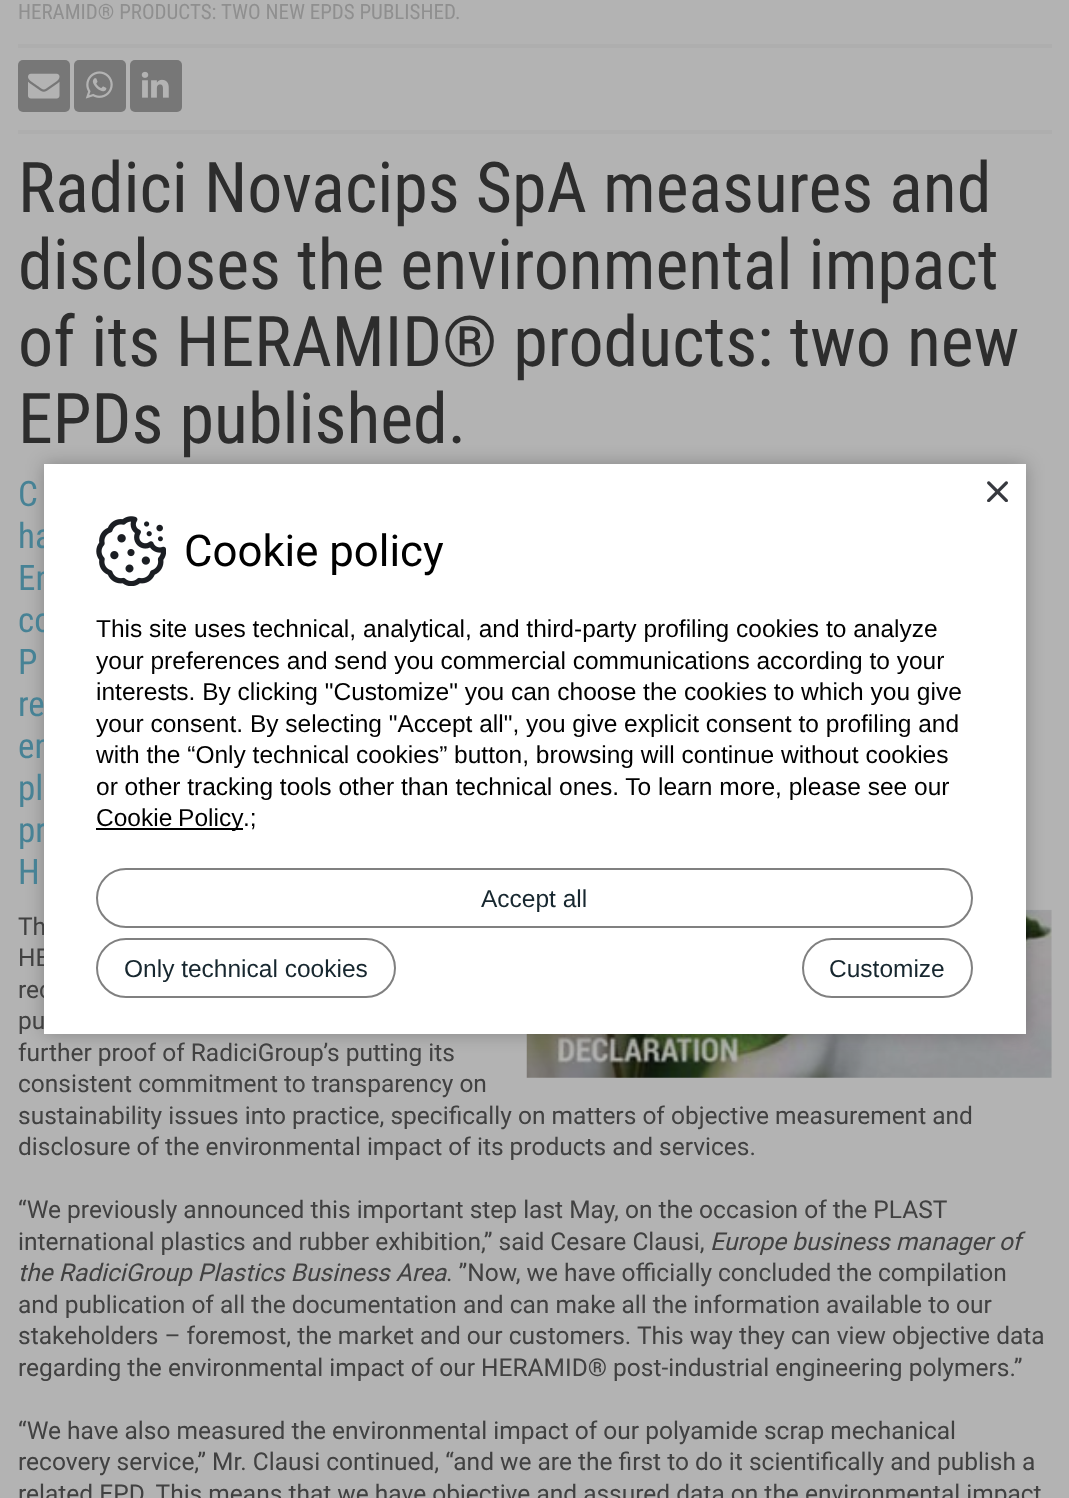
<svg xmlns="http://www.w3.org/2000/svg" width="1069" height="1498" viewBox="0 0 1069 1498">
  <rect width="100%" height="100%" fill="#b3b3b3"/>
  <path d="M18 130h1034v4H18z" fill="#aeaeae"/>
  <path d="M18 44h1034v4H18z" fill="#aeaeae"/>
  <rect x="18" y="60" width="52" height="52" rx="5" fill="#777"/>
  <image x="28" y="73" width="32" height="26" href="img/1.png"/>
  <rect x="74" y="60" width="52" height="52" rx="5" fill="#777"/>
  <image x="85" y="71" width="28" height="28" href="img/2.png"/>
  <rect x="130" y="60" width="52" height="52" rx="5" fill="#777"/>
  <image x="141" y="71" width="28" height="27" href="img/3.png"/>
  <image x="526" y="909" width="526" height="169" href="img/4.png"/>
  <path d="M44 464h982v570H44z" fill="#00000040" filter="blur(9px)"/>
  <text x="18" y="19" font-family="Roboto Condensed" font-size="21" fill="#8f8f8f">HERAMID® PRODUCTS: TWO NEW EPDS PUBLISHED.</text>
  <g font-family="Roboto Condensed" font-size="70" fill="#2d2d2d">
    <text x="18" y="212">Radici Novacips SpA measures and</text>
    <text x="18" y="289">discloses the environmental impact</text>
    <text x="18" y="366">of its HERAMID® products: two new</text>
    <text x="18" y="443">EPDs published.</text>
  </g>
  <g font-family="Roboto Condensed" font-size="35" fill="#478295">
    <text x="18" y="506">C</text>
    <text x="18" y="548">ha</text>
    <text x="18" y="590">En</text>
    <text x="18" y="632">co</text>
    <text x="18" y="674">P</text>
    <text x="18" y="716">re</text>
    <text x="18" y="758">en</text>
    <text x="18" y="800">pl</text>
    <text x="18" y="842">pr</text>
    <text x="18" y="884">H</text>
  </g>
  <g font-family="Roboto" font-size="24.5" fill="#414141">
    <text x="18" y="935">Th</text>
    <text x="18" y="966">HE</text>
    <text x="18" y="998">rec</text>
    <text x="18" y="1029">pu</text>
    <text x="18" y="1061">further proof of RadiciGroup’s putting its</text>
    <text x="18" y="1092">consistent commitment to transparency on</text>
    <text x="18" y="1124">sustainability issues into practice, specifically on matters of objective measurement and</text>
    <text x="18" y="1155">disclosure of the environmental impact of its products and services.</text>
    <text x="18" y="1218">“We previously announced this important step last May, on the occasion of the PLAST</text>
    <text x="18" y="1250">international plastics and rubber exhibition,” said Cesare Clausi,</text>
  </g>
  <g font-family="Roboto" font-size="24.5" font-style="italic" fill="#414141">
    <text x="710" y="1250">Europe business manager of</text>
    <text x="18" y="1281">the RadiciGroup Plastics Business Area</text>
  </g>
  <g font-family="Roboto" font-size="24.5" fill="#414141">
    <text x="446" y="1281">. ”Now, we have officially concluded the compilation</text>
    <text x="18" y="1313">and publication of all the documentation and can make all the information available to our</text>
    <text x="18" y="1344">stakeholders – foremost, the market and our customers. This way they can view objective data</text>
    <text x="18" y="1376">regarding the environmental impact of our HERAMID® post-industrial engineering polymers.”</text>
    <text x="18" y="1439">“We have also measured the environmental impact of our polyamide scrap mechanical</text>
    <text x="18" y="1470">recovery service,” Mr. Clausi continued, “and we are the first to do it scientifically and publish a</text>
    <text x="18" y="1502">related EPD. This means that we have objective and assured data on the environmental impact</text>
  </g>
  <path d="M44 464h982v570H44z" fill="#fff"/>
  <image x="987" y="481" width="21" height="21" href="img/5.png"/>
  <image x="96" y="516" width="70" height="70" href="img/6.png"/>
  <text x="184" y="566" font-family="Roboto" font-size="43.75" fill="#000">Cookie policy</text>
  <g font-family="Liberation Sans" font-size="24.5" fill="#000">
    <text x="96" y="637">This site uses technical, analytical, and third-party profiling cookies to analyze</text>
    <text x="96" y="669">your preferences and send you commercial communications according to your</text>
    <text x="96" y="700">interests. By clicking "Customize" you can choose the cookies to which you give</text>
    <text x="96" y="732">your consent. By selecting "Accept all", you give explicit consent to profiling and</text>
    <text x="96" y="763">with the “Only technical cookies” button, browsing will continue without cookies</text>
    <text x="96" y="795">or other tracking tools other than technical ones. To learn more, please see our</text>
  </g>
  <path d="M96 828h147v2H96z" fill="#000"/>
  <g font-family="Liberation Sans" font-size="24.5" fill="#000">
    <text x="96" y="826" word-spacing="-1">Cookie Policy</text>
    <text x="243" y="826">.;</text>
  </g>
  <rect x="97" y="869" width="875" height="58" rx="29" fill="none" stroke="#808080" stroke-width="2"/>
  <text x="481" y="907" font-family="Liberation Sans" font-size="24.5" fill="#17272f">Accept all</text>
  <rect x="97" y="939" width="298" height="58" rx="29" fill="none" stroke="#808080" stroke-width="2"/>
  <text x="124" y="977" font-family="Liberation Sans" font-size="24.5" fill="#17272f">Only technical cookies</text>
  <rect x="803" y="939" width="169" height="58" rx="29" fill="none" stroke="#808080" stroke-width="2"/>
  <text x="829" y="977" font-family="Liberation Sans" font-size="24.5" fill="#17272f">Customize</text>
</svg>
